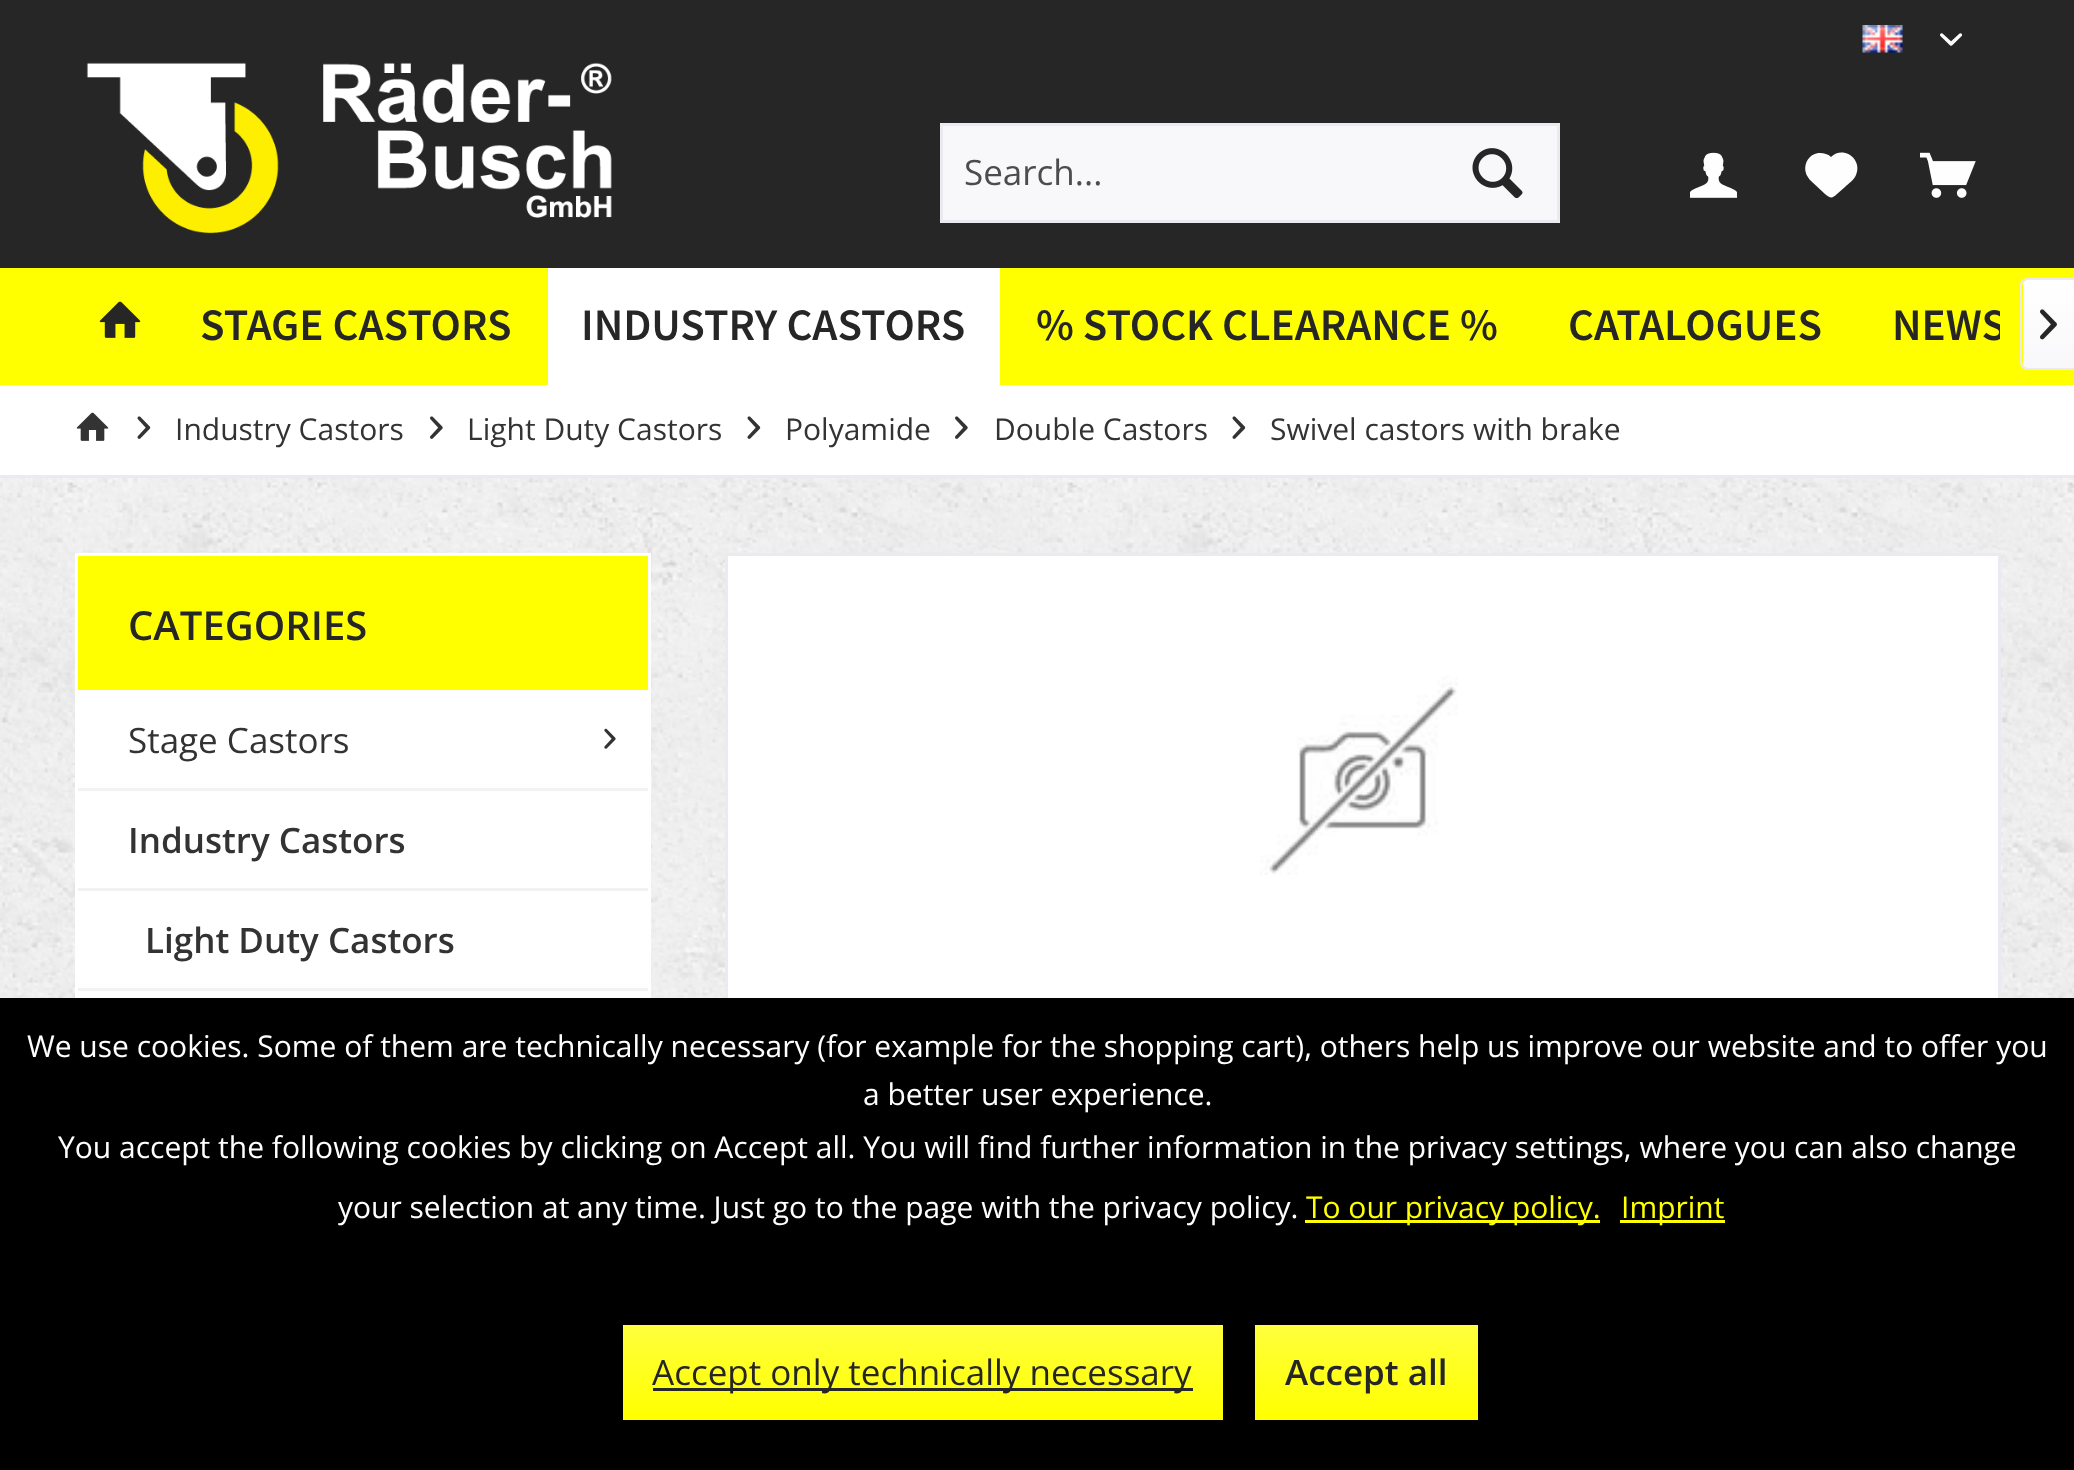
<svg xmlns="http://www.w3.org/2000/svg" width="2074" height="1470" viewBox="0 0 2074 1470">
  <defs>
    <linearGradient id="g1" gradientUnits="userSpaceOnUse" x1="2049" y1="280" x2="2049" y2="368"><stop offset="0" stop-color="#fff"/><stop offset="1" stop-color="#f8f8fa"/></linearGradient>
    <linearGradient id="g2" gradientUnits="userSpaceOnUse" x1="923" y1="1325" x2="923" y2="1420"><stop offset="0" stop-color="#ffff3d"/><stop offset="1" stop-color="#ff0"/></linearGradient>
    <linearGradient id="g3" gradientUnits="userSpaceOnUse" x1="1366" y1="1325" x2="1366" y2="1420"><stop offset="0" stop-color="#ffff3d"/><stop offset="1" stop-color="#ff0"/></linearGradient>
    <clipPath id="clip1"><path d="M1858 268h142v117H1858z"/></clipPath>
  </defs>
  <rect width="100%" height="100%" fill="#fff"/>
  <image x="0" y="478" width="2074" height="520" href="img/1.png"/>
  <path d="M0 0h2074v268H0z" fill="#262626"/>
  <image x="1862" y="25" width="41" height="28" href="img/2.png"/>
  <image x="1940" y="33" width="23" height="13" href="img/3.png"/>
  <image x="86" y="62" width="526" height="172" href="img/4.png"/>
  <path d="M941.5 124.5h617v97H941.5z" fill="#f8f8fa" stroke="#eaeaf0" stroke-width="3"/>
  <image x="1472" y="148" width="51" height="51" href="img/5.png"/>
  <image x="1690" y="152" width="48" height="46" href="img/6.png"/>
  <path d="M1820 153C1810 153 1803 163 1806 173C1806 175 1810 180 1810 180L1825 194C1830 198 1832 199 1837 194L1845 187C1849 183 1854 180 1856 175C1863 159 1843 145 1831 157C1828 154 1824 153 1820 153Z" fill="#fffeff"/>
  <image x="1920" y="152" width="56" height="46" href="img/7.png"/>
  <path d="M0 268h2074v117H0z" fill="#ff0"/>
  <image x="99" y="301" width="42" height="37" href="img/8.png"/>
  <path d="M548 268h452v117H548z" fill="#fff"/>
  <path d="M2028 280H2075V368H2028C2025 368 2023 366 2023 363V285C2023 282 2025 280 2028 280Z" fill="url(#g1)"/>
  <path d="M2028 278H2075V370H2028C2023 370 2020 367 2020 362V285C2020 281 2023 278 2028 278ZM2028 280H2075V368H2028C2025 368 2022 365 2022 362V285C2022 282 2025 280 2028 280Z" fill="#eaeaf0" fill-rule="evenodd"/>
  <image x="2040" y="309" width="17" height="31" href="img/9.png"/>
  <path d="M0 475h2074v3H0z" fill="#eaeaf0"/>
  <image x="76" y="412" width="33" height="29" href="img/10.png"/>
  <image x="137" y="416" width="14" height="23" href="img/11.png"/>
  <image x="430" y="416" width="13" height="23" href="img/12.png"/>
  <image x="747" y="416" width="14" height="23" href="img/11.png"/>
  <image x="955" y="416" width="13" height="23" href="img/12.png"/>
  <image x="1232" y="416" width="14" height="23" href="img/11.png"/>
  <path d="M78 556h570v134H78z" fill="#ff0"/>
  <path d="M75 553h575v3H75z" fill="#fff"/>
  <path d="M648 553h3v137H648z" fill="#fff"/>
  <path d="M75 553h3v137H75z" fill="#fff"/>
  <path d="M75 690h576v308H75z" fill="#fff"/>
  <path d="M78 788h570v3H78z" fill="#f2f2f2"/>
  <image x="604" y="728" width="12" height="21" href="img/13.png"/>
  <path d="M78 888h570v3H78z" fill="#f2f2f2"/>
  <path d="M78 988h570v3H78z" fill="#f2f2f2"/>
  <path d="M728 556h1270v442H728z" fill="#fff"/>
  <path d="M725 553h1275v3H725z" fill="#eaeaf0"/>
  <path d="M1998 553h3v445H1998z" fill="#eaeaf0"/>
  <path d="M725 553h3v445H725z" fill="#eaeaf0"/>
  <image x="1260" y="676" width="198" height="199" href="img/14.png"/>
  <path d="M0 998h2074v472H0z" fill="#000"/>
  <path d="M1305 1220h295v3H1305z" fill="#ff0"/>
  <path d="M1620 1220h105v3H1620z" fill="#ff0"/>
  <path d="M623 1325h600v95H623z" fill="url(#g2)"/>
  <path d="M653 1388h540v3H653z" fill="#262626"/>
  <path d="M1255 1325h223v95H1255z" fill="url(#g3)"/>
  <text x="964" y="185" font-family="Open Sans" font-size="35" fill="#4c4c4c">Search...</text>
  <g font-family="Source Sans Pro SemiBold" font-size="45" font-weight="600" fill="#262626">
    <text x="200" y="340">STAGE CASTORS</text>
    <text x="581" y="340">INDUSTRY CASTORS</text>
    <text x="1036" y="340">% STOCK CLEARANCE %</text>
    <text x="1568" y="340">CATALOGUES</text>
  </g>
  <g clip-path="url(#clip1)">
    <text x="1892" y="340" font-family="Source Sans Pro SemiBold" font-size="45" font-weight="600" fill="#262626">NEWS</text>
  </g>
  <g font-family="Open Sans" font-size="30" fill="#333">
    <text x="175" y="440">Industry Castors</text>
    <text x="467" y="440">Light Duty Castors</text>
    <text x="785" y="440">Polyamide</text>
    <text x="994" y="440">Double Castors</text>
    <text x="1270" y="440">Swivel castors with brake</text>
  </g>
  <text x="128" y="640" font-family="Open Sans" font-size="40" font-weight="600" fill="#262626">CATEGORIES</text>
  <text x="128" y="753" font-family="Open Sans" font-size="35" fill="#333">Stage Castors</text>
  <g font-family="Open Sans" font-size="35" font-weight="600" fill="#333">
    <text x="128" y="853">Industry Castors</text>
    <text x="145" y="953">Light Duty Castors</text>
  </g>
  <g font-family="Open Sans" font-size="30" fill="#fff">
    <text x="27" y="1057">We use cookies. Some of them are technically necessary (for example for the shopping cart), others help us improve our website and to offer you</text>
    <text x="863" y="1105">a better user experience.</text>
    <text x="58" y="1158">You accept the following cookies by clicking on Accept all. You will find further information in the privacy settings, where you can also change</text>
    <text x="338" y="1218">your selection at any time. Just go to the page with the privacy policy.</text>
  </g>
  <g font-family="Open Sans" font-size="30" fill="#ff0">
    <text x="1306" y="1218">To our privacy policy.</text>
    <text x="1621" y="1218">Imprint</text>
  </g>
  <text x="652" y="1385" font-family="Open Sans" font-size="35" fill="#262626">Accept only technically necessary</text>
  <text x="1285" y="1385" font-family="Open Sans" font-size="35" font-weight="600" fill="#262626">Accept all</text>
</svg>
